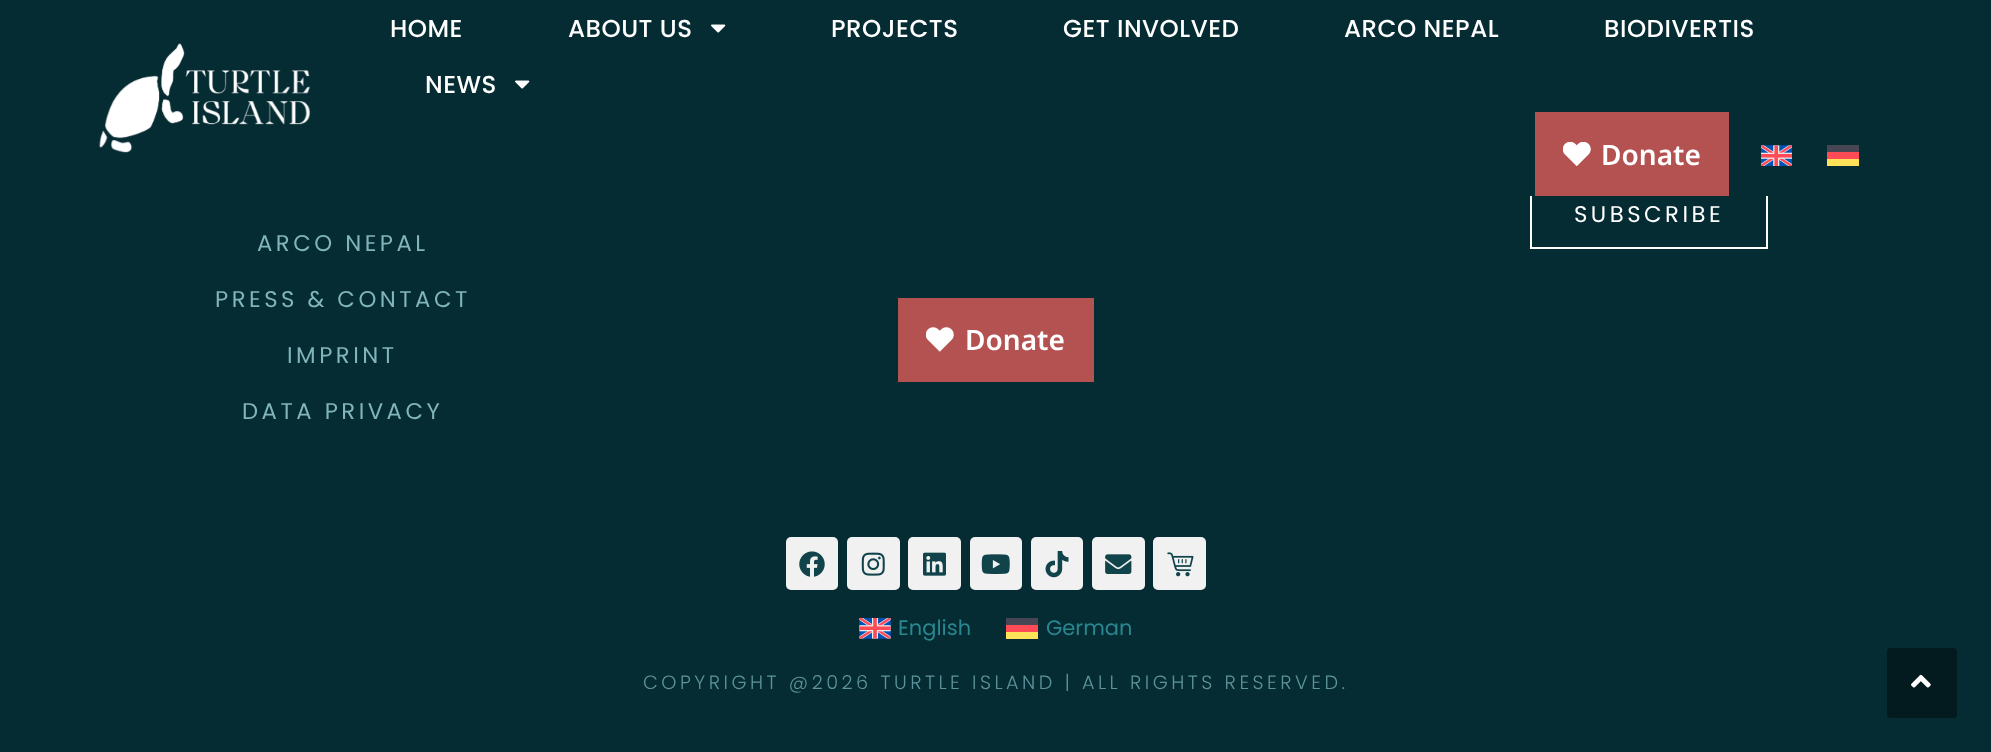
<svg xmlns="http://www.w3.org/2000/svg" width="1991" height="752" viewBox="0 0 1991 752">
  <rect width="100%" height="100%" fill="#052c32"/>
  <image x="99" y="43" width="211" height="110" href="img/1.png"/>
  <image x="711" y="24" width="15" height="9" href="img/2.png"/>
  <image x="515" y="80" width="15" height="9" href="img/2.png"/>
  <path d="M1531 181h236v67H1531z" fill="none" stroke="#fff" stroke-width="2"/>
  <path d="M1530 180h238v16H1530z" fill="#052c32"/>
  <path d="M1535 112h194v84H1535z" fill="#b45252"/>
  <image x="1563" y="142" width="28" height="24" href="img/3.png"/>
  <image x="1761" y="145" width="31" height="21" href="img/4.png"/>
  <path d="M1827 145h32v7H1827z" fill="#464655"/>
  <path d="M1827 152h32v7H1827z" fill="#ff4b55"/>
  <path d="M1827 159h32v7H1827z" fill="#ffe15a"/>
  <path d="M898 298h196v84H898z" fill="#b45252"/>
  <image x="926" y="327" width="28" height="25" href="img/5.png"/>
  <rect x="786" y="537" width="52" height="53" rx="5" fill="#f1f1f1"/>
  <image x="799" y="551" width="26" height="26" href="img/6.png"/>
  <rect x="847" y="537" width="53" height="53" rx="5" fill="#f1f1f1"/>
  <image x="861" y="552" width="24" height="24" href="img/7.png"/>
  <rect x="908" y="537" width="53" height="53" rx="5" fill="#f1f1f1"/>
  <image x="923" y="552" width="23" height="24" href="img/8.png"/>
  <rect x="970" y="537" width="52" height="53" rx="5" fill="#f1f1f1"/>
  <image x="981" y="554" width="29" height="20" href="img/9.png"/>
  <rect x="1031" y="537" width="52" height="53" rx="5" fill="#f1f1f1"/>
  <image x="1045" y="551" width="24" height="27" href="img/10.png"/>
  <rect x="1092" y="537" width="53" height="53" rx="5" fill="#f1f1f1"/>
  <image x="1105" y="554" width="27" height="20" href="img/11.png"/>
  <rect x="1153" y="537" width="53" height="53" rx="5" fill="#f1f1f1"/>
  <image x="1167" y="552" width="27" height="25" href="img/12.png"/>
  <image x="859" y="618" width="32" height="21" href="img/13.png"/>
  <path d="M1006 618h32v7H1006z" fill="#464655"/>
  <path d="M1006 625h32v7H1006z" fill="#ff4b55"/>
  <path d="M1006 632h32v7H1006z" fill="#ffe15a"/>
  <rect x="1887" y="648" width="70" height="70" rx="4" fill="#031a1e"/>
  <image x="1911" y="674" width="20" height="14" href="img/14.png"/>
  <g font-family="Poppins" font-size="24.5" font-weight="500" letter-spacing="0.5" fill="#fff">
    <text x="390" y="37">HOME</text>
    <text x="568" y="37">ABOUT US</text>
    <text x="831" y="37">PROJECTS</text>
    <text x="1063" y="37">GET INVOLVED</text>
    <text x="1344" y="37">ARCO NEPAL</text>
    <text x="1604" y="37">BIODIVERTIS</text>
    <text x="425" y="93">NEWS</text>
  </g>
  <text x="1601" y="165" font-family="Noto Sans" font-size="28" font-weight="600" fill="#fff">Donate</text>
  <text x="1574" y="222" font-family="Poppins" font-size="22.75" letter-spacing="3.5" fill="#fff">SUBSCRIBE</text>
  <g font-family="Poppins" font-size="22.75" letter-spacing="3.5" fill="#81b4bb">
    <text x="257" y="251">ARCO NEPAL</text>
    <text x="215" y="307">PRESS &amp; CONTACT</text>
    <text x="287" y="363">IMPRINT</text>
    <text x="242" y="419">DATA PRIVACY</text>
  </g>
  <text x="965" y="350" font-family="Noto Sans" font-size="28" font-weight="600" fill="#fff">Donate</text>
  <g font-family="Poppins" font-size="21" fill="#2a8690">
    <text x="898" y="635">English</text>
    <text x="1046" y="635">German</text>
  </g>
  <text x="643" y="689" font-family="Poppins" font-size="19.25" font-weight="300" letter-spacing="3.5" fill="#5d949b">COPYRIGHT @2026 TURTLE ISLAND | ALL RIGHTS RESERVED.</text>
</svg>
